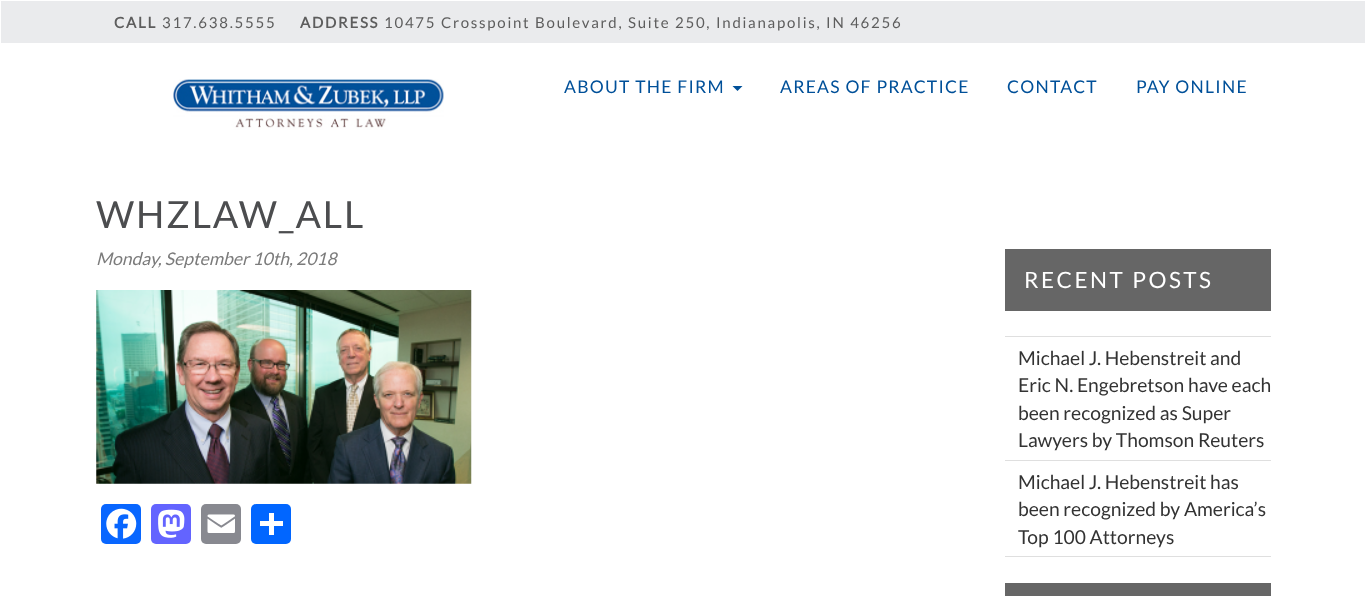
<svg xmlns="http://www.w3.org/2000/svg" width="1366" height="596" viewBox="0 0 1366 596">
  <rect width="100%" height="100%" fill="#fff"/>
  <path d="M1 1h1364v42H1z" fill="#eaebed"/>
  <image x="173" y="79" width="271" height="51" href="img/1.png"/>
  <path d="M732.5 86H742.5L737.5 91Z" fill="#005099"/>
  <image x="96" y="290" width="376" height="194" href="img/2.png"/>
  <rect x="101" y="504" width="40" height="40" rx="5" fill="#0866ff"/>
  <image x="106" y="508" width="31" height="31" href="img/3.png"/>
  <rect x="151" y="504" width="40" height="40" rx="5" fill="#6364ff"/>
  <image x="158" y="509" width="27" height="29" href="img/4.png"/>
  <rect x="201" y="504" width="40" height="40" rx="5" fill="#888990"/>
  <image x="207" y="514" width="28" height="19" href="img/5.png"/>
  <rect x="251" y="504" width="40" height="40" rx="5" fill="#0166ff"/>
  <path d="M269 513h5v22H269z" fill="#fff"/>
  <path d="M260 521h23v5H260z" fill="#fff"/>
  <path d="M1005 249h266v62H1005z" fill="#666"/>
  <path d="M1005 336h266v1H1005z" fill="#dfdfdf"/>
  <path d="M1005 460h266v1H1005z" fill="#dfdfdf"/>
  <path d="M1005 556h266v1H1005z" fill="#dfdfdf"/>
  <path d="M1005 583h266v13H1005z" fill="#666"/>
  <text x="114" y="28" font-family="Lato" font-size="15" font-weight="bold" letter-spacing="1.75" fill="#5d5d5d">CALL</text>
  <text x="162" y="28" font-family="Lato" font-size="15" letter-spacing="1.75" fill="#5d5d5d">317.638.5555</text>
  <text x="300" y="28" font-family="Lato" font-size="15" font-weight="bold" letter-spacing="1.75" fill="#5d5d5d">ADDRESS</text>
  <text x="384" y="28" font-family="Lato" font-size="15" letter-spacing="1.75" fill="#5d5d5d">10475 Crosspoint Boulevard, Suite 250, Indianapolis, IN 46256</text>
  <g font-family="Lato" font-size="17.5" letter-spacing="1.25" fill="#005099">
    <text x="564" y="93">ABOUT THE FIRM</text>
    <text x="780" y="93">AREAS OF PRACTICE</text>
    <text x="1007" y="93">CONTACT</text>
    <text x="1136" y="93">PAY ONLINE</text>
  </g>
  <text x="96" y="228" font-family="Lato" font-size="37.5" letter-spacing="1.9" fill="#4c4d4f">WHZLAW_ALL</text>
  <text x="96" y="265" font-family="Lato" font-size="17.5" font-style="italic" fill="#7b7b7b">Monday, September 10th, 2018</text>
  <text x="1024" y="288" font-family="Lato" font-size="22.5" letter-spacing="2.5" fill="#fff">RECENT POSTS</text>
  <g font-family="Lato" font-size="19.25" fill="#333">
    <text x="1018" y="365">Michael J. Hebenstreit and</text>
    <text x="1018" y="392">Eric N. Engebretson have each</text>
    <text x="1018" y="420">been recognized as Super</text>
    <text x="1018" y="447">Lawyers by Thomson Reuters</text>
    <text x="1018" y="489">Michael J. Hebenstreit has</text>
    <text x="1018" y="516">been recognized by America’s</text>
    <text x="1018" y="544">Top 100 Attorneys</text>
  </g>
</svg>
